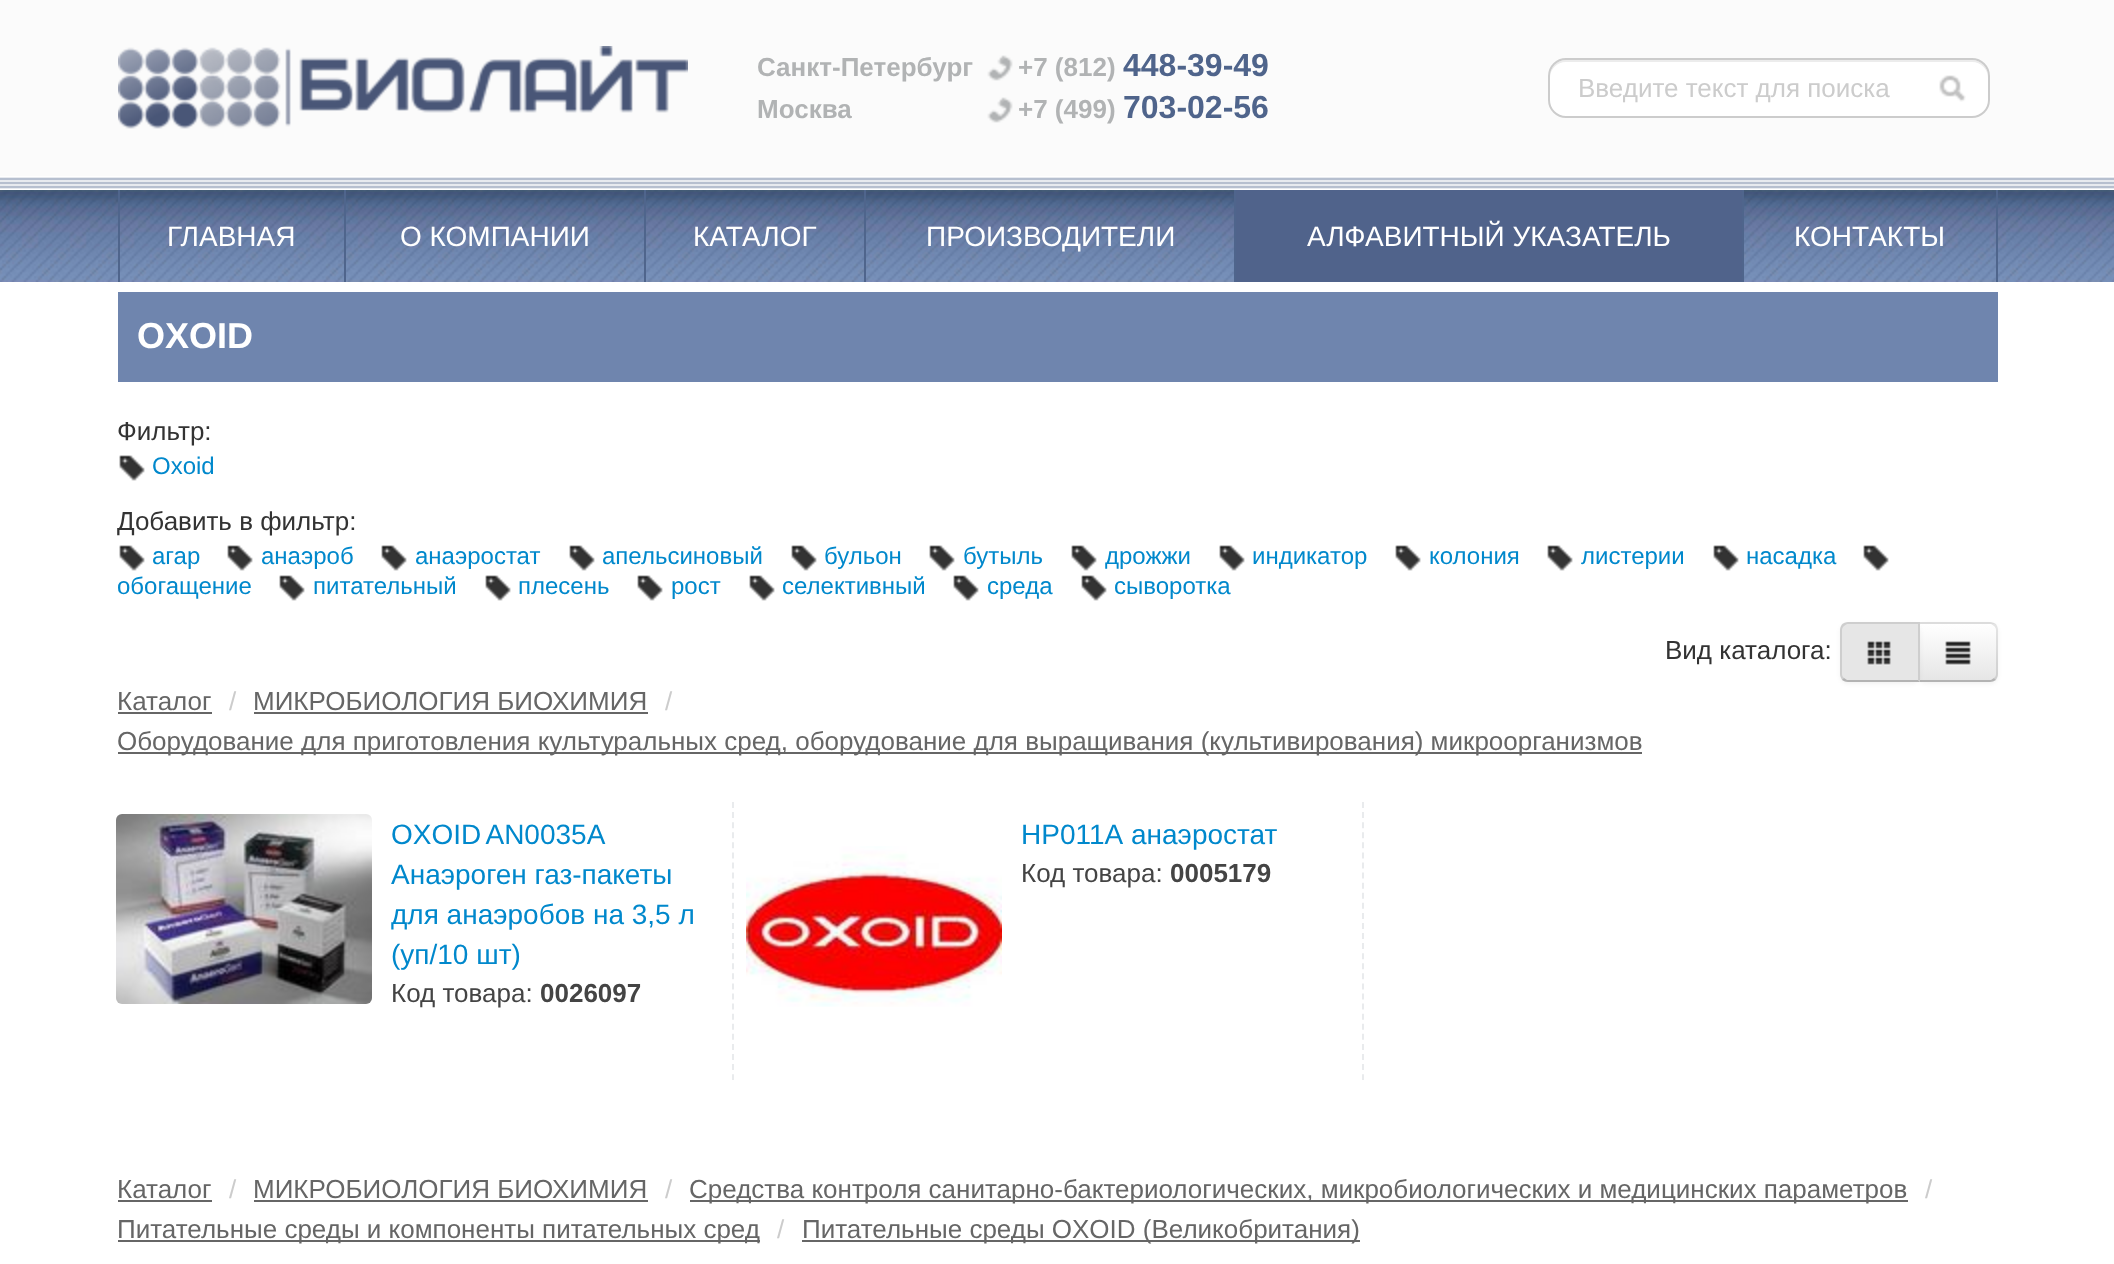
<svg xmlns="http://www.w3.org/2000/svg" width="2114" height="1264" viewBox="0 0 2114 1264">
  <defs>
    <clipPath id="clip1"><path d="M1918 622H1990C1994.5 622 1998 625.5 1998 630V674C1998 678.5 1994.5 682 1990 682H1918Z"/></clipPath>
    <linearGradient id="g1" gradientUnits="userSpaceOnUse" x1="1958" y1="624" x2="1958" y2="680"><stop offset="0" stop-color="#fff"/><stop offset="1" stop-color="#e6e6e6"/></linearGradient>
  </defs>
  <rect width="100%" height="100%" fill="#fff"/>
  <path d="M0 0h2114v176H0z" fill="#fbfbfb"/>
  <image x="118" y="46" width="570" height="83" href="img/1.png"/>
  <image x="987" y="55" width="26" height="26" href="img/2.png"/>
  <image x="987" y="97" width="26" height="26" href="img/2.png"/>
  <rect x="1548" y="58" width="442" height="60" rx="18" fill="#fff"/>
  <path d="M1566 62H1972C1981 62 1988 69 1988 78V76C1988 67 1981 60 1972 60H1566C1557 60 1550 67 1550 76V78C1550 69 1557 62 1566 62Z" fill="#ececec"/>
  <rect x="1549" y="59" width="440" height="58" rx="17" fill="none" stroke="#ccc" stroke-width="2"/>
  <image x="1939" y="75" width="27" height="27" href="img/3.png"/>
  <image x="0" y="177" width="2114" height="12" href="img/4.png"/>
  <image x="0" y="190" width="2114" height="92" href="img/5.png"/>
  <path d="M344 190h2v92H344z" fill="#4f658c"/>
  <path d="M118 190h2v92H118z" fill="#4f658c"/>
  <path d="M644 190h2v92H644z" fill="#4f658c"/>
  <path d="M864 190h2v92H864z" fill="#4f658c"/>
  <path d="M1234 190h2v92H1234z" fill="#4f658c"/>
  <path d="M1236 190h506v92H1236z" fill="#50638b"/>
  <path d="M1742 190h2v92H1742z" fill="#4f658c"/>
  <path d="M1996 190h2v92H1996z" fill="#4f658c"/>
  <path d="M118 292h1880v90H118z" fill="#6f85ae"/>
  <image x="119" y="455" width="26" height="26" href="img/6.png"/>
  <image x="119" y="545" width="26" height="26" href="img/6.png"/>
  <image x="227" y="545" width="26" height="26" href="img/6.png"/>
  <image x="381" y="545" width="26" height="26" href="img/6.png"/>
  <image x="569" y="545" width="26" height="26" href="img/6.png"/>
  <image x="791" y="545" width="26" height="26" href="img/6.png"/>
  <image x="929" y="545" width="26" height="26" href="img/6.png"/>
  <image x="1071" y="545" width="26" height="26" href="img/6.png"/>
  <image x="1219" y="545" width="26" height="26" href="img/6.png"/>
  <image x="1395" y="545" width="26" height="26" href="img/6.png"/>
  <image x="1547" y="545" width="26" height="26" href="img/6.png"/>
  <image x="1713" y="545" width="26" height="26" href="img/6.png"/>
  <image x="1863" y="545" width="26" height="26" href="img/6.png"/>
  <image x="279" y="575" width="26" height="26" href="img/6.png"/>
  <image x="485" y="575" width="26" height="26" href="img/6.png"/>
  <image x="637" y="575" width="26" height="26" href="img/6.png"/>
  <image x="749" y="575" width="26" height="26" href="img/6.png"/>
  <image x="953" y="575" width="26" height="26" href="img/6.png"/>
  <image x="1081" y="575" width="26" height="26" href="img/6.png"/>
  <rect x="1918" y="624" width="80" height="60" rx="8" fill="#0000000d" filter="blur(2px)"/>
  <path d="M1918 622H1990C1994.5 622 1998 625.5 1998 630V674C1998 678.5 1994.5 682 1990 682H1918Z" fill="#f5f5f5"/>
  <g clip-path="url(#clip1)">
    <path d="M1920 624h78v56H1920z" fill="url(#g1)"/>
  </g>
  <path d="M1918 622L1920 624H1991L1994 626L1996 624C1994 623 1992 622 1990 622Z" fill="#0000001a"/>
  <path d="M1998 674V630C1998 628 1997 626 1996 624L1994 626C1995 627 1996 628 1996 630V674C1996 676 1995 677 1994 678L1996 680C1997 678 1998 676 1998 674Z" fill="#0000001a"/>
  <path d="M1990 682C1992 682 1994 681 1996 680L1994 678L1991 680H1920L1918 682Z" fill="#b3b3b3"/>
  <rect x="1840" y="624" width="80" height="60" rx="8" fill="#0000000d" filter="blur(2px)"/>
  <path d="M1848 622H1920V682H1848C1843.5 682 1840 678.5 1840 674V630C1840 625.5 1843.5 622 1848 622Z" fill="#e6e6e6"/>
  <path d="M1848 622C1846 622 1844 623 1842 624L1844 626L1847 624H1918L1920 622Z" fill="#0000001a"/>
  <path d="M1920 622L1918 624V680L1920 682Z" fill="#0000001a"/>
  <path d="M1920 682L1918 680H1847L1844 678L1842 680C1844 681 1846 682 1848 682Z" fill="#b3b3b3"/>
  <path d="M1840 630V674C1840 676 1841 678 1842 680L1844 678C1843 677 1842 676 1842 674V630C1842 628 1843 627 1844 626L1842 624C1841 626 1840 628 1840 630Z" fill="#0000001a"/>
  <image x="1867" y="641" width="24" height="25" href="img/7.png"/>
  <image x="1945" y="641" width="26" height="25" href="img/8.png"/>
  <path d="M118 712h94v2H118z" fill="#666"/>
  <path d="M254 712h394v2H254z" fill="#666"/>
  <path d="M118 752h1524v2H118z" fill="#666"/>
  <path d="M733 802V1080" fill="none" stroke="#e9ebed" stroke-width="2" stroke-dasharray="6 4.08"/>
  <image x="116" y="814" width="256" height="190" href="img/9.png"/>
  <path d="M1363 802V1080" fill="none" stroke="#e9ebed" stroke-width="2" stroke-dasharray="6 4.08"/>
  <image x="746" y="846" width="256" height="161" href="img/10.png"/>
  <path d="M118 1200h94v2H118z" fill="#666"/>
  <path d="M254 1200h394v2H254z" fill="#666"/>
  <path d="M690 1200h1218v2H690z" fill="#666"/>
  <path d="M118 1240h642v2H118z" fill="#666"/>
  <path d="M802 1240h558v2H802z" fill="#666"/>
  <g font-family="Liberation Sans" font-size="26" font-weight="bold" fill="#b1b3b4">
    <text x="757" y="76">Санкт-Петербург</text>
    <text x="1018" y="76">+7 (812)</text>
  </g>
  <text x="1123" y="76" font-family="Liberation Sans" font-size="32" font-weight="bold" fill="#4f648b">448-39-49</text>
  <g font-family="Liberation Sans" font-size="26" font-weight="bold" fill="#b1b3b4">
    <text x="757" y="118">Москва</text>
    <text x="1018" y="118">+7 (499)</text>
  </g>
  <text x="1123" y="118" font-family="Liberation Sans" font-size="32" font-weight="bold" fill="#4f648b">703-02-56</text>
  <text x="1578" y="97" font-family="Liberation Sans" font-size="26" fill="#ccc">Введите текст для поиска</text>
  <g font-family="Liberation Sans" font-size="28" fill="#fff">
    <text x="167" y="246">ГЛАВНАЯ</text>
    <text x="400" y="246">О КОМПАНИИ</text>
    <text x="693" y="246">КАТАЛОГ</text>
    <text x="926" y="246">ПРОИЗВОДИТЕЛИ</text>
    <text x="1307" y="246">АЛФАВИТНЫЙ УКАЗАТЕЛЬ</text>
    <text x="1794" y="246">КОНТАКТЫ</text>
  </g>
  <text x="137" y="348" font-family="Liberation Sans" font-size="36" font-weight="bold" fill="#fff">OXOID</text>
  <text x="117" y="440" font-family="Liberation Sans" font-size="26" fill="#333">Фильтр:</text>
  <text x="152" y="474" font-family="Liberation Sans" font-size="24" fill="#08c">Oxoid</text>
  <text x="117" y="530" font-family="Liberation Sans" font-size="26" fill="#333">Добавить в фильтр:</text>
  <g font-family="Liberation Sans" font-size="24" fill="#08c">
    <text x="152" y="564">агар</text>
    <text x="261" y="564">анаэроб</text>
    <text x="415" y="564">анаэростат</text>
    <text x="602" y="564">апельсиновый</text>
    <text x="824" y="564">бульон</text>
    <text x="963" y="564">бутыль</text>
    <text x="1105" y="564">дрожжи</text>
    <text x="1252" y="564">индикатор</text>
    <text x="1429" y="564">колония</text>
    <text x="1581" y="564">листерии</text>
    <text x="1746" y="564">насадка</text>
    <text x="117" y="594">обогащение</text>
    <text x="313" y="594">питательный</text>
    <text x="518" y="594">плесень</text>
    <text x="671" y="594">рост</text>
    <text x="782" y="594">селективный</text>
    <text x="987" y="594">среда</text>
    <text x="1114" y="594">сыворотка</text>
  </g>
  <text x="1665" y="659" font-family="Liberation Sans" font-size="26" fill="#333">Вид каталога:</text>
  <text x="117" y="710" font-family="Liberation Sans" font-size="26" fill="#666">Каталог</text>
  <text x="229" y="710" font-family="Liberation Sans" font-size="26" fill="#ccc">/</text>
  <text x="253" y="710" font-family="Liberation Sans" font-size="26" fill="#666">МИКРОБИОЛОГИЯ БИОХИМИЯ</text>
  <text x="665" y="710" font-family="Liberation Sans" font-size="26" fill="#ccc">/</text>
  <text x="117" y="750" font-family="Liberation Sans" font-size="26" fill="#666">Оборудование для приготовления культуральных сред, оборудование для выращивания (культивирования) микроорганизмов</text>
  <g font-family="Liberation Sans" font-size="28" fill="#08c">
    <text x="391" y="844" word-spacing="-2">OXOID AN0035A</text>
    <text x="391" y="884">Анаэроген газ-пакеты</text>
    <text x="391" y="924">для анаэробов на 3,5 л</text>
    <text x="391" y="964">(уп/10 шт)</text>
  </g>
  <text x="391" y="1002" font-family="Liberation Sans" font-size="26" fill="#444">Код товара:</text>
  <text x="540" y="1002" font-family="Liberation Sans" font-size="26" font-weight="bold" fill="#444">0026097</text>
  <text x="1021" y="844" font-family="Liberation Sans" font-size="28" fill="#08c">НР011А анаэростат</text>
  <text x="1021" y="882" font-family="Liberation Sans" font-size="26" fill="#444">Код товара:</text>
  <text x="1170" y="882" font-family="Liberation Sans" font-size="26" font-weight="bold" fill="#444">0005179</text>
  <text x="117" y="1198" font-family="Liberation Sans" font-size="26" fill="#666">Каталог</text>
  <text x="229" y="1198" font-family="Liberation Sans" font-size="26" fill="#ccc">/</text>
  <text x="253" y="1198" font-family="Liberation Sans" font-size="26" fill="#666">МИКРОБИОЛОГИЯ БИОХИМИЯ</text>
  <text x="665" y="1198" font-family="Liberation Sans" font-size="26" fill="#ccc">/</text>
  <text x="689" y="1198" font-family="Liberation Sans" font-size="26" fill="#666">Средства контроля санитарно-бактериологических, микробиологических и медицинских параметров</text>
  <text x="1925" y="1198" font-family="Liberation Sans" font-size="26" fill="#ccc">/</text>
  <text x="117" y="1238" font-family="Liberation Sans" font-size="26" fill="#666">Питательные среды и компоненты питательных сред</text>
  <text x="777" y="1238" font-family="Liberation Sans" font-size="26" fill="#ccc">/</text>
  <text x="802" y="1238" font-family="Liberation Sans" font-size="26" fill="#666">Питательные среды OXOID (Великобритания)</text>
</svg>
